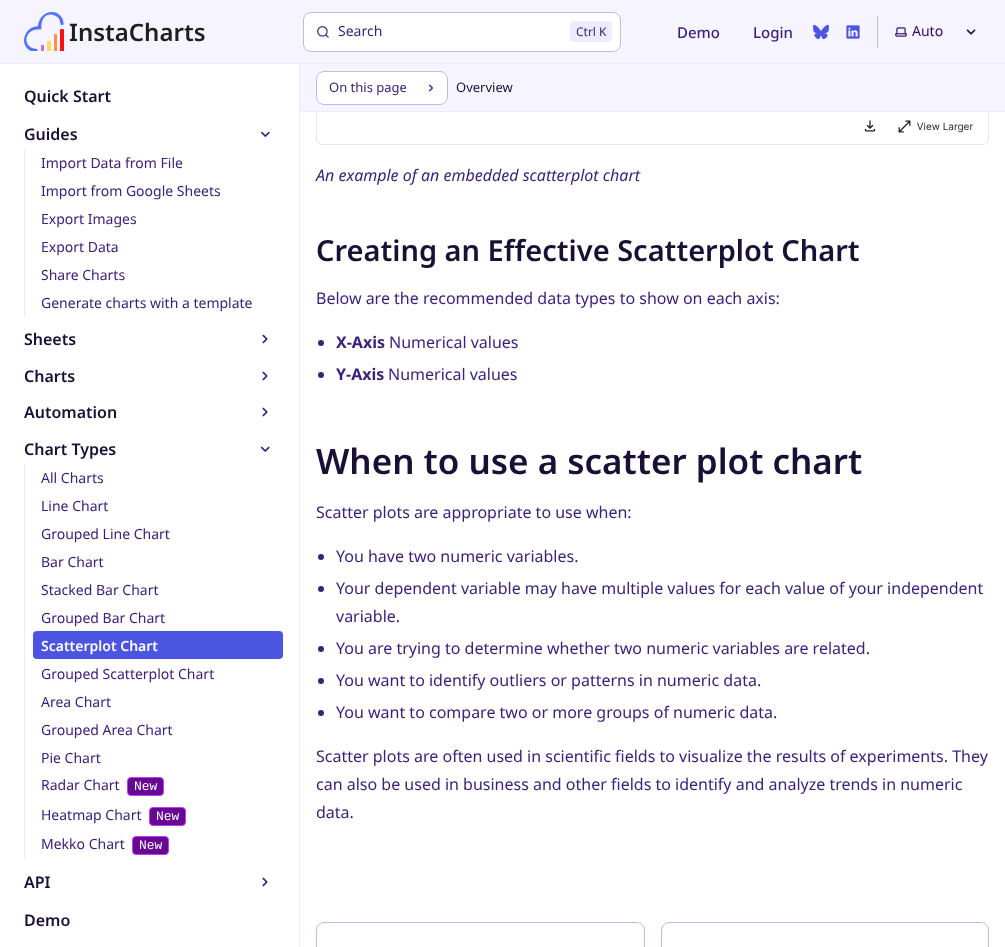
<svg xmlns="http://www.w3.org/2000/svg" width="1005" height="947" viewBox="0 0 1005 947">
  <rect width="100%" height="100%" fill="#fff"/>
  <rect x="316.5" y="-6.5" width="672" height="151" rx="5.5" fill="none" stroke="#e6e6e6"/>
  <path d="M0 0h1005v63H0z" fill="#f6f5ff"/>
  <path d="M0 63h1005v1H0z" fill="#eeebff"/>
  <image x="24" y="12" width="40" height="39" href="img/1.png"/>
  <rect x="303.5" y="12.5" width="317" height="39" rx="7.5" fill="#fff" stroke="#c2baec"/>
  <image x="317" y="26" width="12" height="12" href="img/2.png"/>
  <rect x="570" y="21" width="42" height="21" rx="4" fill="#eeebff"/>
  <image x="813" y="24" width="16" height="15" href="img/3.png"/>
  <image x="846" y="25" width="14" height="14" href="img/4.png"/>
  <path d="M877 16h1v32H877z" fill="#c2baec"/>
  <image x="895" y="27" width="12" height="10" href="img/5.png"/>
  <image x="966" y="29" width="10" height="6" href="img/6.png"/>
  <path d="M299 64h1v883H299z" fill="#eeebff"/>
  <image x="261" y="131" width="9" height="6" href="img/7.png"/>
  <path d="M24 149h1v168H24z" fill="#eeebff"/>
  <image x="262" y="334" width="6" height="10" href="img/8.png"/>
  <image x="262" y="371" width="6" height="10" href="img/8.png"/>
  <image x="262" y="407" width="6" height="10" href="img/8.png"/>
  <image x="260" y="446" width="10" height="6" href="img/9.png"/>
  <path d="M24 464h1v395H24z" fill="#eeebff"/>
  <rect x="33" y="631" width="250" height="28" rx="4" fill="#4c55e1"/>
  <rect x="127.5" y="777.5" width="36" height="18" rx="3.5" fill="#660891" stroke="#bb3df5"/>
  <rect x="149.5" y="807.5" width="36" height="18" rx="3.5" fill="#660891" stroke="#bb3df5"/>
  <rect x="132.5" y="836.5" width="36" height="18" rx="3.5" fill="#660891" stroke="#bb3df5"/>
  <image x="262" y="877" width="6" height="10" href="img/8.png"/>
  <path d="M300 64h705v47H300z" fill="#f6f5ff"/>
  <path d="M300 111h705v1H300z" fill="#eeebff"/>
  <rect x="316.5" y="71.5" width="131" height="33" rx="7.5" fill="#fff" stroke="#c2baec"/>
  <image x="429" y="84" width="4" height="8" href="img/10.png"/>
  <image x="864" y="120" width="109" height="13" href="img/11.png"/>
  <circle cx="321" cy="343" r="3" fill="#3d2179"/>
  <circle cx="321" cy="375" r="3" fill="#3d2179"/>
  <circle cx="321" cy="557" r="3" fill="#3d2179"/>
  <circle cx="321" cy="589" r="3" fill="#3d2179"/>
  <circle cx="321" cy="649" r="3" fill="#3d2179"/>
  <circle cx="321" cy="681" r="3" fill="#3d2179"/>
  <circle cx="321" cy="713" r="3" fill="#3d2179"/>
  <rect x="316.5" y="922.5" width="328" height="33" rx="7.5" fill="none" stroke="#c2baec"/>
  <rect x="661.5" y="922.5" width="327" height="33" rx="7.5" fill="none" stroke="#c2baec"/>
  <text x="69" y="41" font-family="Noto Sans" font-size="24" font-weight="600" fill="#1f1f1f">InstaCharts</text>
  <text x="338" y="36" font-family="Noto Sans" font-size="14" fill="#3d2179">Search</text>
  <text x="576" y="36" font-family="Noto Sans" font-size="12" fill="#3d2179">Ctrl K</text>
  <g font-family="Noto Sans" font-size="15" font-weight="500" fill="#3d2179">
    <text x="677" y="38">Demo</text>
    <text x="753" y="38">Login</text>
  </g>
  <text x="912" y="36" font-family="Noto Sans" font-size="14" fill="#2d0863">Auto</text>
  <g font-family="Noto Sans" font-size="16" font-weight="600" fill="#1a1035">
    <text x="24" y="102">Quick Start</text>
    <text x="24" y="140">Guides</text>
  </g>
  <g font-family="Noto Sans" font-size="14" fill="#3d2179">
    <text x="41" y="168">Import Data from File</text>
    <text x="41" y="196">Import from Google Sheets</text>
    <text x="41" y="224">Export Images</text>
    <text x="41" y="252">Export Data</text>
    <text x="41" y="280">Share Charts</text>
    <text x="41" y="308">Generate charts with a template</text>
  </g>
  <g font-family="Noto Sans" font-size="16" font-weight="600" fill="#1a1035">
    <text x="24" y="345">Sheets</text>
    <text x="24" y="382">Charts</text>
    <text x="24" y="418">Automation</text>
    <text x="24" y="455">Chart Types</text>
  </g>
  <g font-family="Noto Sans" font-size="14" fill="#3d2179">
    <text x="41" y="483">All Charts</text>
    <text x="41" y="511">Line Chart</text>
    <text x="41" y="539">Grouped Line Chart</text>
    <text x="41" y="567">Bar Chart</text>
    <text x="41" y="595">Stacked Bar Chart</text>
    <text x="41" y="623">Grouped Bar Chart</text>
  </g>
  <text x="41" y="651" font-family="Noto Sans" font-size="14" font-weight="600" fill="#fff">Scatterplot Chart</text>
  <g font-family="Noto Sans" font-size="14" fill="#3d2179">
    <text x="41" y="679">Grouped Scatterplot Chart</text>
    <text x="41" y="707">Area Chart</text>
    <text x="41" y="735">Grouped Area Chart</text>
    <text x="41" y="763">Pie Chart</text>
    <text x="41" y="790">Radar Chart</text>
  </g>
  <text x="134" y="790" font-family="Liberation Mono" font-size="13" fill="#fff">New</text>
  <text x="41" y="820" font-family="Noto Sans" font-size="14" fill="#3d2179">Heatmap Chart</text>
  <text x="156" y="820" font-family="Liberation Mono" font-size="13" fill="#fff">New</text>
  <text x="41" y="849" font-family="Noto Sans" font-size="14" fill="#3d2179">Mekko Chart</text>
  <text x="139" y="849" font-family="Liberation Mono" font-size="13" fill="#fff">New</text>
  <g font-family="Noto Sans" font-size="16" font-weight="600" fill="#1a1035">
    <text x="24" y="888">API</text>
    <text x="24" y="926">Demo</text>
  </g>
  <text x="329" y="92" font-family="Noto Sans" font-size="13" fill="#3d2179">On this page</text>
  <text x="456" y="92" font-family="Noto Sans" font-size="13" fill="#1a1035">Overview</text>
  <text x="316" y="181" font-family="Noto Sans" font-size="16" font-style="italic" fill="#3d2179">An example of an embedded scatterplot chart</text>
  <text x="316" y="261" font-family="Noto Sans" font-size="29" font-weight="600" fill="#1a1035">Creating an Effective Scatterplot Chart</text>
  <text x="316" y="304" font-family="Noto Sans" font-size="16" fill="#3d2179">Below are the recommended data types to show on each axis:</text>
  <text x="336" y="348" font-family="Noto Sans" font-size="16" font-weight="bold" fill="#3d2179">X-Axis</text>
  <text x="389" y="348" font-family="Noto Sans" font-size="16" fill="#3d2179">Numerical values</text>
  <text x="336" y="380" font-family="Noto Sans" font-size="16" font-weight="bold" fill="#3d2179">Y-Axis</text>
  <text x="388" y="380" font-family="Noto Sans" font-size="16" fill="#3d2179">Numerical values</text>
  <text x="316" y="474" font-family="Noto Sans" font-size="35" font-weight="600" fill="#1a1035">When to use a scatter plot chart</text>
  <g font-family="Noto Sans" font-size="16" fill="#3d2179">
    <text x="316" y="518">Scatter plots are appropriate to use when:</text>
    <text x="336" y="562">You have two numeric variables.</text>
    <text x="336" y="594">Your dependent variable may have multiple values for each value of your independent</text>
    <text x="336" y="622">variable.</text>
    <text x="336" y="654">You are trying to determine whether two numeric variables are related.</text>
    <text x="336" y="686">You want to identify outliers or patterns in numeric data.</text>
    <text x="336" y="718">You want to compare two or more groups of numeric data.</text>
    <text x="316" y="762">Scatter plots are often used in scientific fields to visualize the results of experiments. They</text>
    <text x="316" y="790">can also be used in business and other fields to identify and analyze trends in numeric</text>
    <text x="316" y="818">data.</text>
  </g>
</svg>
